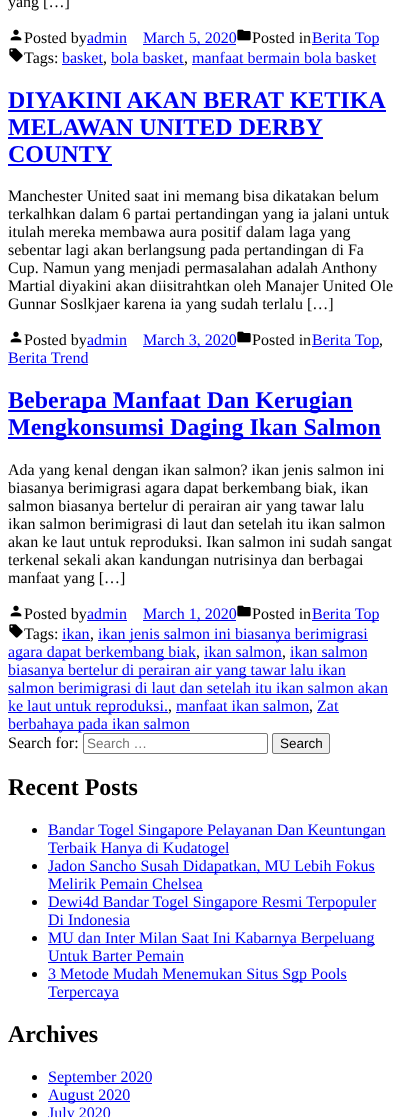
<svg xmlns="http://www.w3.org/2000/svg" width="402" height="1117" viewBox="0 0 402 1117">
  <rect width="100%" height="100%" fill="#fff"/>
  <image x="10" y="29" width="12" height="12" href="img/1.png"/>
  <path d="M87 44h40v1H87z" fill="#00e"/>
  <path d="M143 44h93v1H143z" fill="#00e"/>
  <image x="237" y="29" width="14" height="12" href="img/2.png"/>
  <path d="M312 44h67v1H312z" fill="#00e"/>
  <image x="9" y="48" width="14" height="14" href="img/3.png"/>
  <path d="M62 64h41v1H62z" fill="#00e"/>
  <path d="M111 64h73v1H111z" fill="#00e"/>
  <path d="M192 64h184v1H192z" fill="#00e"/>
  <path d="M8 110h378v2H8z" fill="#00e"/>
  <path d="M8 137h315v2H8z" fill="#00e"/>
  <path d="M8 164h104v2H8z" fill="#00e"/>
  <image x="10" y="331" width="12" height="12" href="img/1.png"/>
  <path d="M87 346h40v1H87z" fill="#00e"/>
  <path d="M143 346h93v1H143z" fill="#00e"/>
  <image x="237" y="331" width="14" height="12" href="img/2.png"/>
  <path d="M312 346h67v1H312z" fill="#00e"/>
  <path d="M8 364h80v1H8z" fill="#00e"/>
  <path d="M8 410h345v2H8z" fill="#00e"/>
  <path d="M8 437h373v2H8z" fill="#00e"/>
  <image x="10" y="605" width="12" height="12" href="img/1.png"/>
  <path d="M87 620h40v1H87z" fill="#00e"/>
  <path d="M143 620h93v1H143z" fill="#00e"/>
  <image x="237" y="605" width="14" height="12" href="img/2.png"/>
  <path d="M312 620h67v1H312z" fill="#00e"/>
  <image x="9" y="624" width="14" height="14" href="img/3.png"/>
  <path d="M62 640h28v1H62z" fill="#00e"/>
  <path d="M98 640h270v1H98z" fill="#00e"/>
  <path d="M8 658h188v1H8z" fill="#00e"/>
  <path d="M204 658h78v1H204z" fill="#00e"/>
  <path d="M290 658h77v1H290z" fill="#00e"/>
  <path d="M8 676h338v1H8z" fill="#00e"/>
  <path d="M8 694h380v1H8z" fill="#00e"/>
  <path d="M8 712h160v1H8z" fill="#00e"/>
  <path d="M176 712h133v1H176z" fill="#00e"/>
  <path d="M317 712h22v1H317z" fill="#00e"/>
  <path d="M8 730h182v1H8z" fill="#00e"/>
  <rect x="83.5" y="733.5" width="184" height="20" rx="1.5" fill="none" stroke="#767676"/>
  <rect x="272.5" y="733.5" width="57" height="20" rx="1.5" fill="#efefef" stroke="#767676"/>
  <circle cx="34.5" cy="830.5" r="2.5" fill="#000"/>
  <path d="M48 836h338v1H48z" fill="#00e"/>
  <path d="M48 854h181v1H48z" fill="#00e"/>
  <circle cx="34.5" cy="866.5" r="2.5" fill="#000"/>
  <path d="M48 872h327v1H48z" fill="#00e"/>
  <path d="M48 890h155v1H48z" fill="#00e"/>
  <circle cx="34.5" cy="902.5" r="2.5" fill="#000"/>
  <path d="M48 908h328v1H48z" fill="#00e"/>
  <path d="M48 926h82v1H48z" fill="#00e"/>
  <circle cx="34.5" cy="938.5" r="2.5" fill="#000"/>
  <path d="M48 944h327v1H48z" fill="#00e"/>
  <path d="M48 962h136v1H48z" fill="#00e"/>
  <circle cx="34.5" cy="974.5" r="2.5" fill="#000"/>
  <path d="M48 980h299v1H48z" fill="#00e"/>
  <path d="M48 998h71v1H48z" fill="#00e"/>
  <circle cx="34.5" cy="1077.5" r="2.5" fill="#000"/>
  <path d="M48 1083h104v1H48z" fill="#00e"/>
  <circle cx="34.5" cy="1095.5" r="2.5" fill="#000"/>
  <path d="M48 1101h82v1H48z" fill="#00e"/>
  <circle cx="34.5" cy="1113.5" r="2.5" fill="#000"/>
  <g font-family="Liberation Serif" font-size="16" fill="#000">
    <text x="8" y="7">yang […]</text>
    <text x="24" y="43">Posted by</text>
  </g>
  <g font-family="Liberation Serif" font-size="16" fill="#00e">
    <text x="87" y="43">admin</text>
    <text x="143" y="43">March 5, 2020</text>
  </g>
  <text x="252" y="43" font-family="Liberation Serif" font-size="16" fill="#000">Posted in</text>
  <text x="312" y="43" font-family="Liberation Serif" font-size="16" fill="#00e">Berita Top</text>
  <text x="24" y="63" font-family="Liberation Serif" font-size="16" fill="#000">Tags:</text>
  <text x="62" y="63" font-family="Liberation Serif" font-size="16" fill="#00e">basket</text>
  <text x="103" y="63" font-family="Liberation Serif" font-size="16" fill="#000">,</text>
  <text x="111" y="63" font-family="Liberation Serif" font-size="16" fill="#00e">bola basket</text>
  <text x="184" y="63" font-family="Liberation Serif" font-size="16" fill="#000">,</text>
  <text x="192" y="63" font-family="Liberation Serif" font-size="16" fill="#00e">manfaat bermain bola basket</text>
  <g font-family="Liberation Serif" font-size="24" font-weight="bold" fill="#00e">
    <text x="8" y="108">DIYAKINI AKAN BERAT KETIKA</text>
    <text x="8" y="135">MELAWAN UNITED DERBY</text>
    <text x="8" y="162">COUNTY</text>
  </g>
  <g font-family="Liberation Serif" font-size="16" fill="#000">
    <text x="8" y="201">Manchester United saat ini memang bisa dikatakan belum</text>
    <text x="8" y="219">terkalhkan dalam 6 partai pertandingan yang ia jalani untuk</text>
    <text x="8" y="237">itulah mereka membawa aura positif dalam laga yang</text>
    <text x="8" y="255">sebentar lagi akan berlangsung pada pertandingan di Fa</text>
    <text x="8" y="273">Cup. Namun yang menjadi permasalahan adalah Anthony</text>
    <text x="8" y="291">Martial diyakini akan diisitrahtkan oleh Manajer United Ole</text>
    <text x="8" y="309">Gunnar Soslkjaer karena ia yang sudah terlalu […]</text>
    <text x="24" y="345">Posted by</text>
  </g>
  <g font-family="Liberation Serif" font-size="16" fill="#00e">
    <text x="87" y="345">admin</text>
    <text x="143" y="345">March 3, 2020</text>
  </g>
  <text x="252" y="345" font-family="Liberation Serif" font-size="16" fill="#000">Posted in</text>
  <text x="312" y="345" font-family="Liberation Serif" font-size="16" fill="#00e">Berita Top</text>
  <text x="379" y="345" font-family="Liberation Serif" font-size="16" fill="#000">,</text>
  <text x="8" y="363" font-family="Liberation Serif" font-size="16" fill="#00e">Berita Trend</text>
  <g font-family="Liberation Serif" font-size="24" font-weight="bold" fill="#00e">
    <text x="8" y="408">Beberapa Manfaat Dan Kerugian</text>
    <text x="8" y="435">Mengkonsumsi Daging Ikan Salmon</text>
  </g>
  <g font-family="Liberation Serif" font-size="16" fill="#000">
    <text x="8" y="475">Ada yang kenal dengan ikan salmon? ikan jenis salmon ini</text>
    <text x="8" y="493">biasanya berimigrasi agara dapat berkembang biak, ikan</text>
    <text x="8" y="511">salmon biasanya bertelur di perairan air yang tawar lalu</text>
    <text x="8" y="529">ikan salmon berimigrasi di laut dan setelah itu ikan salmon</text>
    <text x="8" y="547">akan ke laut untuk reproduksi. Ikan salmon ini sudah sangat</text>
    <text x="8" y="565">terkenal sekali akan kandungan nutrisinya dan berbagai</text>
    <text x="8" y="583">manfaat yang […]</text>
    <text x="24" y="619">Posted by</text>
  </g>
  <g font-family="Liberation Serif" font-size="16" fill="#00e">
    <text x="87" y="619">admin</text>
    <text x="143" y="619">March 1, 2020</text>
  </g>
  <text x="252" y="619" font-family="Liberation Serif" font-size="16" fill="#000">Posted in</text>
  <text x="312" y="619" font-family="Liberation Serif" font-size="16" fill="#00e">Berita Top</text>
  <text x="24" y="639" font-family="Liberation Serif" font-size="16" fill="#000">Tags:</text>
  <text x="62" y="639" font-family="Liberation Serif" font-size="16" fill="#00e">ikan</text>
  <text x="90" y="639" font-family="Liberation Serif" font-size="16" fill="#000">,</text>
  <g font-family="Liberation Serif" font-size="16" fill="#00e">
    <text x="98" y="639">ikan jenis salmon ini biasanya berimigrasi</text>
    <text x="8" y="657">agara dapat berkembang biak</text>
  </g>
  <text x="196" y="657" font-family="Liberation Serif" font-size="16" fill="#000">,</text>
  <text x="204" y="657" font-family="Liberation Serif" font-size="16" fill="#00e">ikan salmon</text>
  <text x="282" y="657" font-family="Liberation Serif" font-size="16" fill="#000">,</text>
  <g font-family="Liberation Serif" font-size="16" fill="#00e">
    <text x="290" y="657">ikan salmon</text>
    <text x="8" y="675">biasanya bertelur di perairan air yang tawar lalu ikan</text>
    <text x="8" y="693">salmon berimigrasi di laut dan setelah itu ikan salmon akan</text>
    <text x="8" y="711">ke laut untuk reproduksi.</text>
  </g>
  <text x="168" y="711" font-family="Liberation Serif" font-size="16" fill="#000">,</text>
  <text x="176" y="711" font-family="Liberation Serif" font-size="16" fill="#00e">manfaat ikan salmon</text>
  <text x="309" y="711" font-family="Liberation Serif" font-size="16" fill="#000">,</text>
  <g font-family="Liberation Serif" font-size="16" fill="#00e">
    <text x="317" y="711">Zat</text>
    <text x="8" y="729">berbahaya pada ikan salmon</text>
  </g>
  <text x="8" y="748" font-family="Liberation Serif" font-size="16" fill="#000">Search for:</text>
  <text x="87" y="748" font-family="Liberation Sans" font-size="13.5" fill="#757575">Search …</text>
  <text x="280" y="748" font-family="Liberation Sans" font-size="13.5" fill="#000">Search</text>
  <text x="8" y="795" font-family="Liberation Serif" font-size="24" font-weight="bold" fill="#000">Recent Posts</text>
  <g font-family="Liberation Serif" font-size="16" fill="#00e">
    <text x="48" y="835">Bandar Togel Singapore Pelayanan Dan Keuntungan</text>
    <text x="48" y="853">Terbaik Hanya di Kudatogel</text>
    <text x="48" y="871">Jadon Sancho Susah Didapatkan, MU Lebih Fokus</text>
    <text x="48" y="889">Melirik Pemain Chelsea</text>
    <text x="48" y="907">Dewi4d Bandar Togel Singapore Resmi Terpopuler</text>
    <text x="48" y="925">Di Indonesia</text>
    <text x="48" y="943">MU dan Inter Milan Saat Ini Kabarnya Berpeluang</text>
    <text x="48" y="961">Untuk Barter Pemain</text>
    <text x="48" y="979">3 Metode Mudah Menemukan Situs Sgp Pools</text>
    <text x="48" y="997">Terpercaya</text>
  </g>
  <text x="8" y="1042" font-family="Liberation Serif" font-size="24" font-weight="bold" fill="#000">Archives</text>
  <g font-family="Liberation Serif" font-size="16" fill="#00e">
    <text x="48" y="1082">September 2020</text>
    <text x="48" y="1100">August 2020</text>
    <text x="48" y="1118">July 2020</text>
  </g>
</svg>
